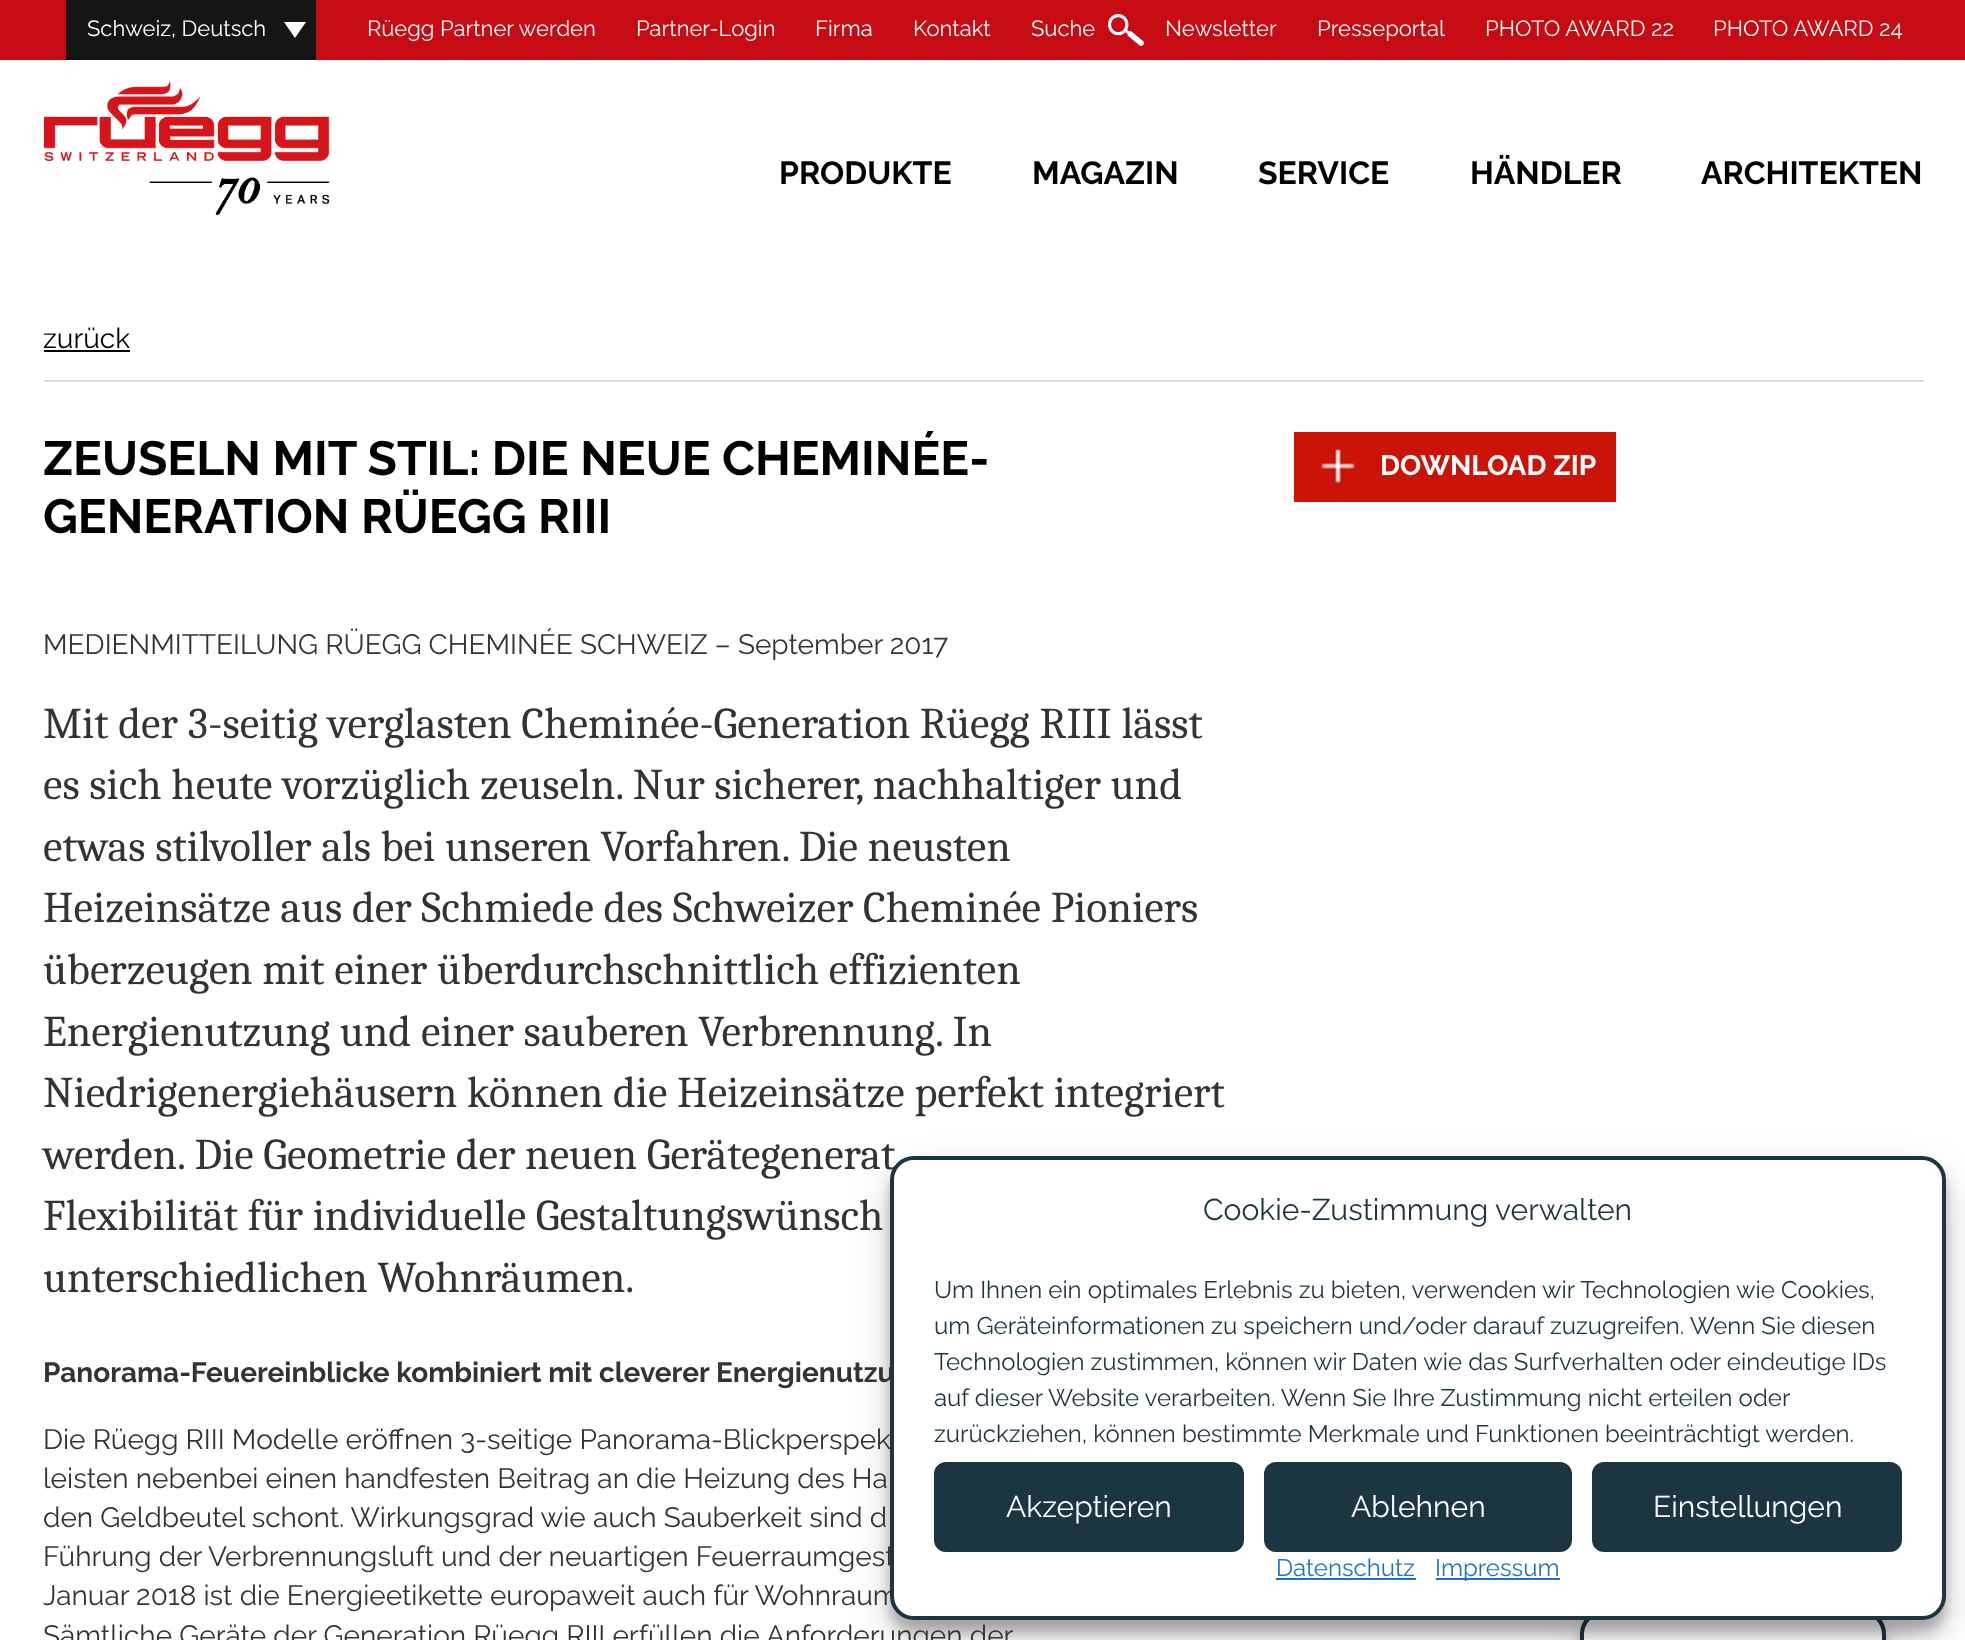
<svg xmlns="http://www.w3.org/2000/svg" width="1965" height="1640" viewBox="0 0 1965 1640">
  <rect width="100%" height="100%" fill="#fff"/>
  <path d="M0 0h1965v60H0z" fill="#c60b13"/>
  <path d="M66 0h250v60H66z" fill="#151515"/>
  <image x="284" y="22" width="22" height="16" href="img/1.png"/>
  <image x="1108" y="14" width="36" height="32" href="img/2.png"/>
  <image x="44" y="80" width="286" height="136" href="img/3.png"/>
  <path d="M44 380h1880v2H44z" fill="#ddd"/>
  <path d="M44 350h86v2H44z" fill="#000"/>
  <path d="M1294 432h322v70H1294z" fill="#ca1407"/>
  <image x="1321" y="449" width="34" height="34" href="img/4.png"/>
  <rect x="1580" y="1622" width="306" height="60" rx="24" fill="#0000003b" filter="blur(6px)"/>
  <rect x="1580" y="1630" width="306" height="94" rx="24" fill="#00000030" filter="blur(20px)"/>
  <path d="M1604 1612H1862C1874 1612 1884 1622 1884 1634V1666H1582V1634C1582 1622 1592 1612 1604 1612Z" fill="#fff" stroke="#1b3541" stroke-width="4"/>
  <rect x="890" y="1168" width="1056" height="464" rx="24" fill="#0000003b" filter="blur(6px)"/>
  <rect x="890" y="1176" width="1056" height="464" rx="24" fill="#00000030" filter="blur(20px)"/>
  <g font-family="Raleway" font-size="22" font-weight="100" fill="#fff">
    <text x="87" y="36">Schweiz, Deutsch</text>
    <text x="367" y="36">Rüegg Partner werden</text>
    <text x="636" y="36">Partner-Login</text>
    <text x="815" y="36">Firma</text>
    <text x="913" y="36">Kontakt</text>
    <text x="1031" y="36">Suche</text>
    <text x="1165" y="36">Newsletter</text>
    <text x="1317" y="36">Presseportal</text>
    <text x="1485" y="36">PHOTO AWARD 22</text>
    <text x="1713" y="36">PHOTO AWARD 24</text>
  </g>
  <g font-family="'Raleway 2'" font-size="32" font-weight="100" fill="#000">
    <text x="779" y="184">PRODUKTE</text>
    <text x="1032" y="184">MAGAZIN</text>
    <text x="1258" y="184">SERVICE</text>
    <text x="1470" y="184">HÄNDLER</text>
    <text x="1701" y="184">ARCHITEKTEN</text>
  </g>
  <text x="43" y="348" font-family="Raleway" font-size="28" font-weight="100" fill="#000">zurück</text>
  <g font-family="'Raleway 2'" font-size="48" font-weight="100" fill="#000">
    <text x="43" y="475">ZEUSELN MIT STIL: DIE NEUE CHEMINÉE-</text>
    <text x="43" y="533">GENERATION RÜEGG RIII</text>
  </g>
  <text x="43" y="654" font-family="Raleway" font-size="28" font-weight="100" fill="#333">MEDIENMITTEILUNG RÜEGG CHEMINÉE SCHWEIZ – September 2017</text>
  <g font-family="Caladea" font-size="44" fill="#333">
    <text x="43" y="738">Mit der 3-seitig verglasten Cheminée-Generation Rüegg RIII lässt</text>
    <text x="43" y="799">es sich heute vorzüglich zeuseln. Nur sicherer, nachhaltiger und</text>
    <text x="43" y="861">etwas stilvoller als bei unseren Vorfahren. Die neusten</text>
    <text x="43" y="922">Heizeinsätze aus der Schmiede des Schweizer Cheminée Pioniers</text>
    <text x="43" y="984">überzeugen mit einer überdurchschnittlich effizienten</text>
    <text x="43" y="1046">Energienutzung und einer sauberen Verbrennung. In</text>
    <text x="43" y="1107">Niedrigenergiehäusern können die Heizeinsätze perfekt integriert</text>
    <text x="43" y="1169">werden. Die Geometrie der neuen Gerätegenerat</text>
    <text x="43" y="1230">Flexibilität für individuelle Gestaltungswünsch</text>
    <text x="43" y="1292">unterschiedlichen Wohnräumen.</text>
  </g>
  <text x="43" y="1382" font-family="'Raleway 2'" font-size="28" font-weight="100" fill="#333">Panorama-Feuereinblicke kombiniert mit cleverer Energienutzu</text>
  <g font-family="Raleway" font-size="28" font-weight="100" fill="#333">
    <text x="43" y="1449">Die Rüegg RIII Modelle eröffnen 3-seitige Panorama-Blickperspek</text>
    <text x="43" y="1488">leisten nebenbei einen handfesten Beitrag an die Heizung des Ha</text>
    <text x="43" y="1527">den Geldbeutel schont. Wirkungsgrad wie auch Sauberkeit sind d</text>
    <text x="43" y="1566">Führung der Verbrennungsluft und der neuartigen Feuerraumgest</text>
    <text x="43" y="1605">Januar 2018 ist die Energieetikette europaweit auch für Wohnraum</text>
    <text x="43" y="1645">Sämtliche Geräte der Generation Rüegg RIII erfüllen die Anforderungen der</text>
  </g>
  <text x="1380" y="475" font-family="'Raleway 2'" font-size="28" font-weight="100" fill="#fff">DOWNLOAD ZIP</text>
  <rect x="892" y="1158" width="1052" height="460" rx="22" fill="#fff" stroke="#1b3541" stroke-width="4"/>
  <text x="1203" y="1220" font-family="Raleway" font-size="30" font-weight="100" fill="#1b3541">Cookie-Zustimmung verwalten</text>
  <g font-family="Raleway" font-size="24" font-weight="100" fill="#1b3541">
    <text x="934" y="1298">Um Ihnen ein optimales Erlebnis zu bieten, verwenden wir Technologien wie Cookies,</text>
    <text x="934" y="1334">um Geräteinformationen zu speichern und/oder darauf zuzugreifen. Wenn Sie diesen</text>
    <text x="934" y="1370">Technologien zustimmen, können wir Daten wie das Surfverhalten oder eindeutige IDs</text>
    <text x="934" y="1406">auf dieser Website verarbeiten. Wenn Sie Ihre Zustimmung nicht erteilen oder</text>
    <text x="934" y="1442">zurückziehen, können bestimmte Merkmale und Funktionen beeinträchtigt werden.</text>
  </g>
  <rect x="935" y="1463" width="308" height="88" rx="11" fill="#1b3541" stroke="#1b3541" stroke-width="2"/>
  <text x="1006" y="1517" font-family="Raleway" font-size="30" font-weight="100" fill="#fff">Akzeptieren</text>
  <rect x="1265" y="1463" width="306" height="88" rx="11" fill="#1b3541" stroke="#1b3541" stroke-width="2"/>
  <text x="1351" y="1517" font-family="Raleway" font-size="30" font-weight="100" fill="#fff">Ablehnen</text>
  <rect x="1593" y="1463" width="308" height="88" rx="11" fill="#1b3541" stroke="#1b3541" stroke-width="2"/>
  <text x="1653" y="1517" font-family="Raleway" font-size="30" font-weight="100" fill="#fff">Einstellungen</text>
  <text x="1276" y="1576" font-family="Raleway" font-size="24" font-weight="100" fill="#1e73be">Datenschutz</text>
  <path d="M1276 1578h140v2H1276z" fill="#1e73be"/>
  <path d="M1436 1578h124v2H1436z" fill="#1e73be"/>
  <text x="1435" y="1576" font-family="Raleway" font-size="24" font-weight="100" fill="#1e73be">Impressum</text>
</svg>
